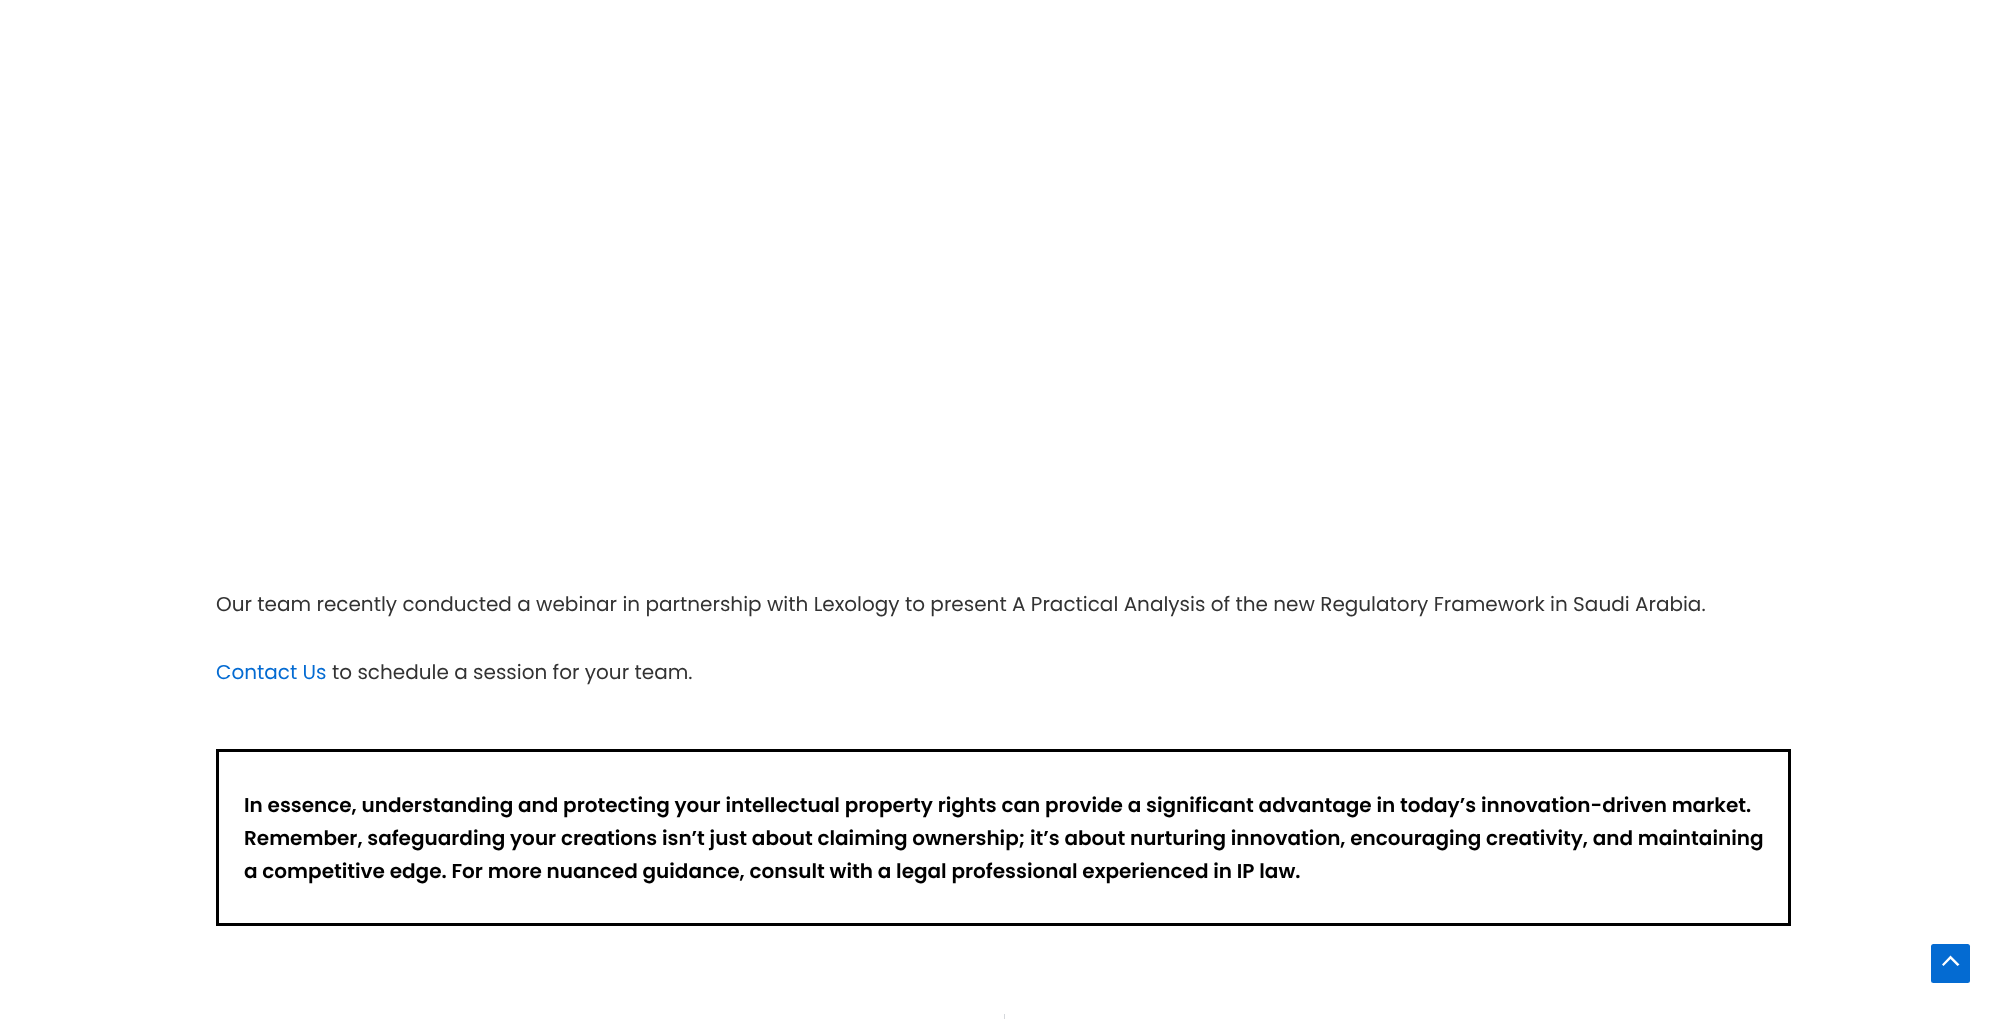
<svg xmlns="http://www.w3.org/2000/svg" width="2007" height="1019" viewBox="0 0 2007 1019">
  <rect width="100%" height="100%" fill="#fff"/>
  <path d="M217.5 750.5h1572v174H217.5z" fill="none" stroke="#000" stroke-width="3"/>
  <path d="M1004 1014h1v5H1004z" fill="#d5d8dc"/>
  <rect x="1931" y="944" width="39" height="39" rx="2.5" fill="#046bd2"/>
  <path d="M1959.5 964.5L1950.5 955.5L1942 964.5L1943.5 966L1950.5 959L1957.5 966Z" fill="#fff"/>
  <text x="216" y="611" font-family="Poppins" font-size="20" fill="#333">Our team recently conducted a webinar in partnership with Lexology to present A Practical Analysis of the new Regulatory Framework in Saudi Arabia.</text>
  <text x="216" y="679" font-family="Poppins" font-size="20" fill="#046bd2">Contact Us</text>
  <text x="332" y="679" font-family="Poppins" font-size="20" fill="#333">to schedule a session for your team.</text>
  <g font-family="Poppins" font-size="20" font-weight="600" fill="#000">
    <text x="244" y="812">In essence, understanding and protecting your intellectual property rights can provide a significant advantage in today’s innovation-driven market.</text>
    <text x="244" y="845">Remember, safeguarding your creations isn’t just about claiming ownership; it’s about nurturing innovation, encouraging creativity, and maintaining</text>
    <text x="244" y="878">a competitive edge. For more nuanced guidance, consult with a legal professional experienced in IP law.</text>
  </g>
</svg>
